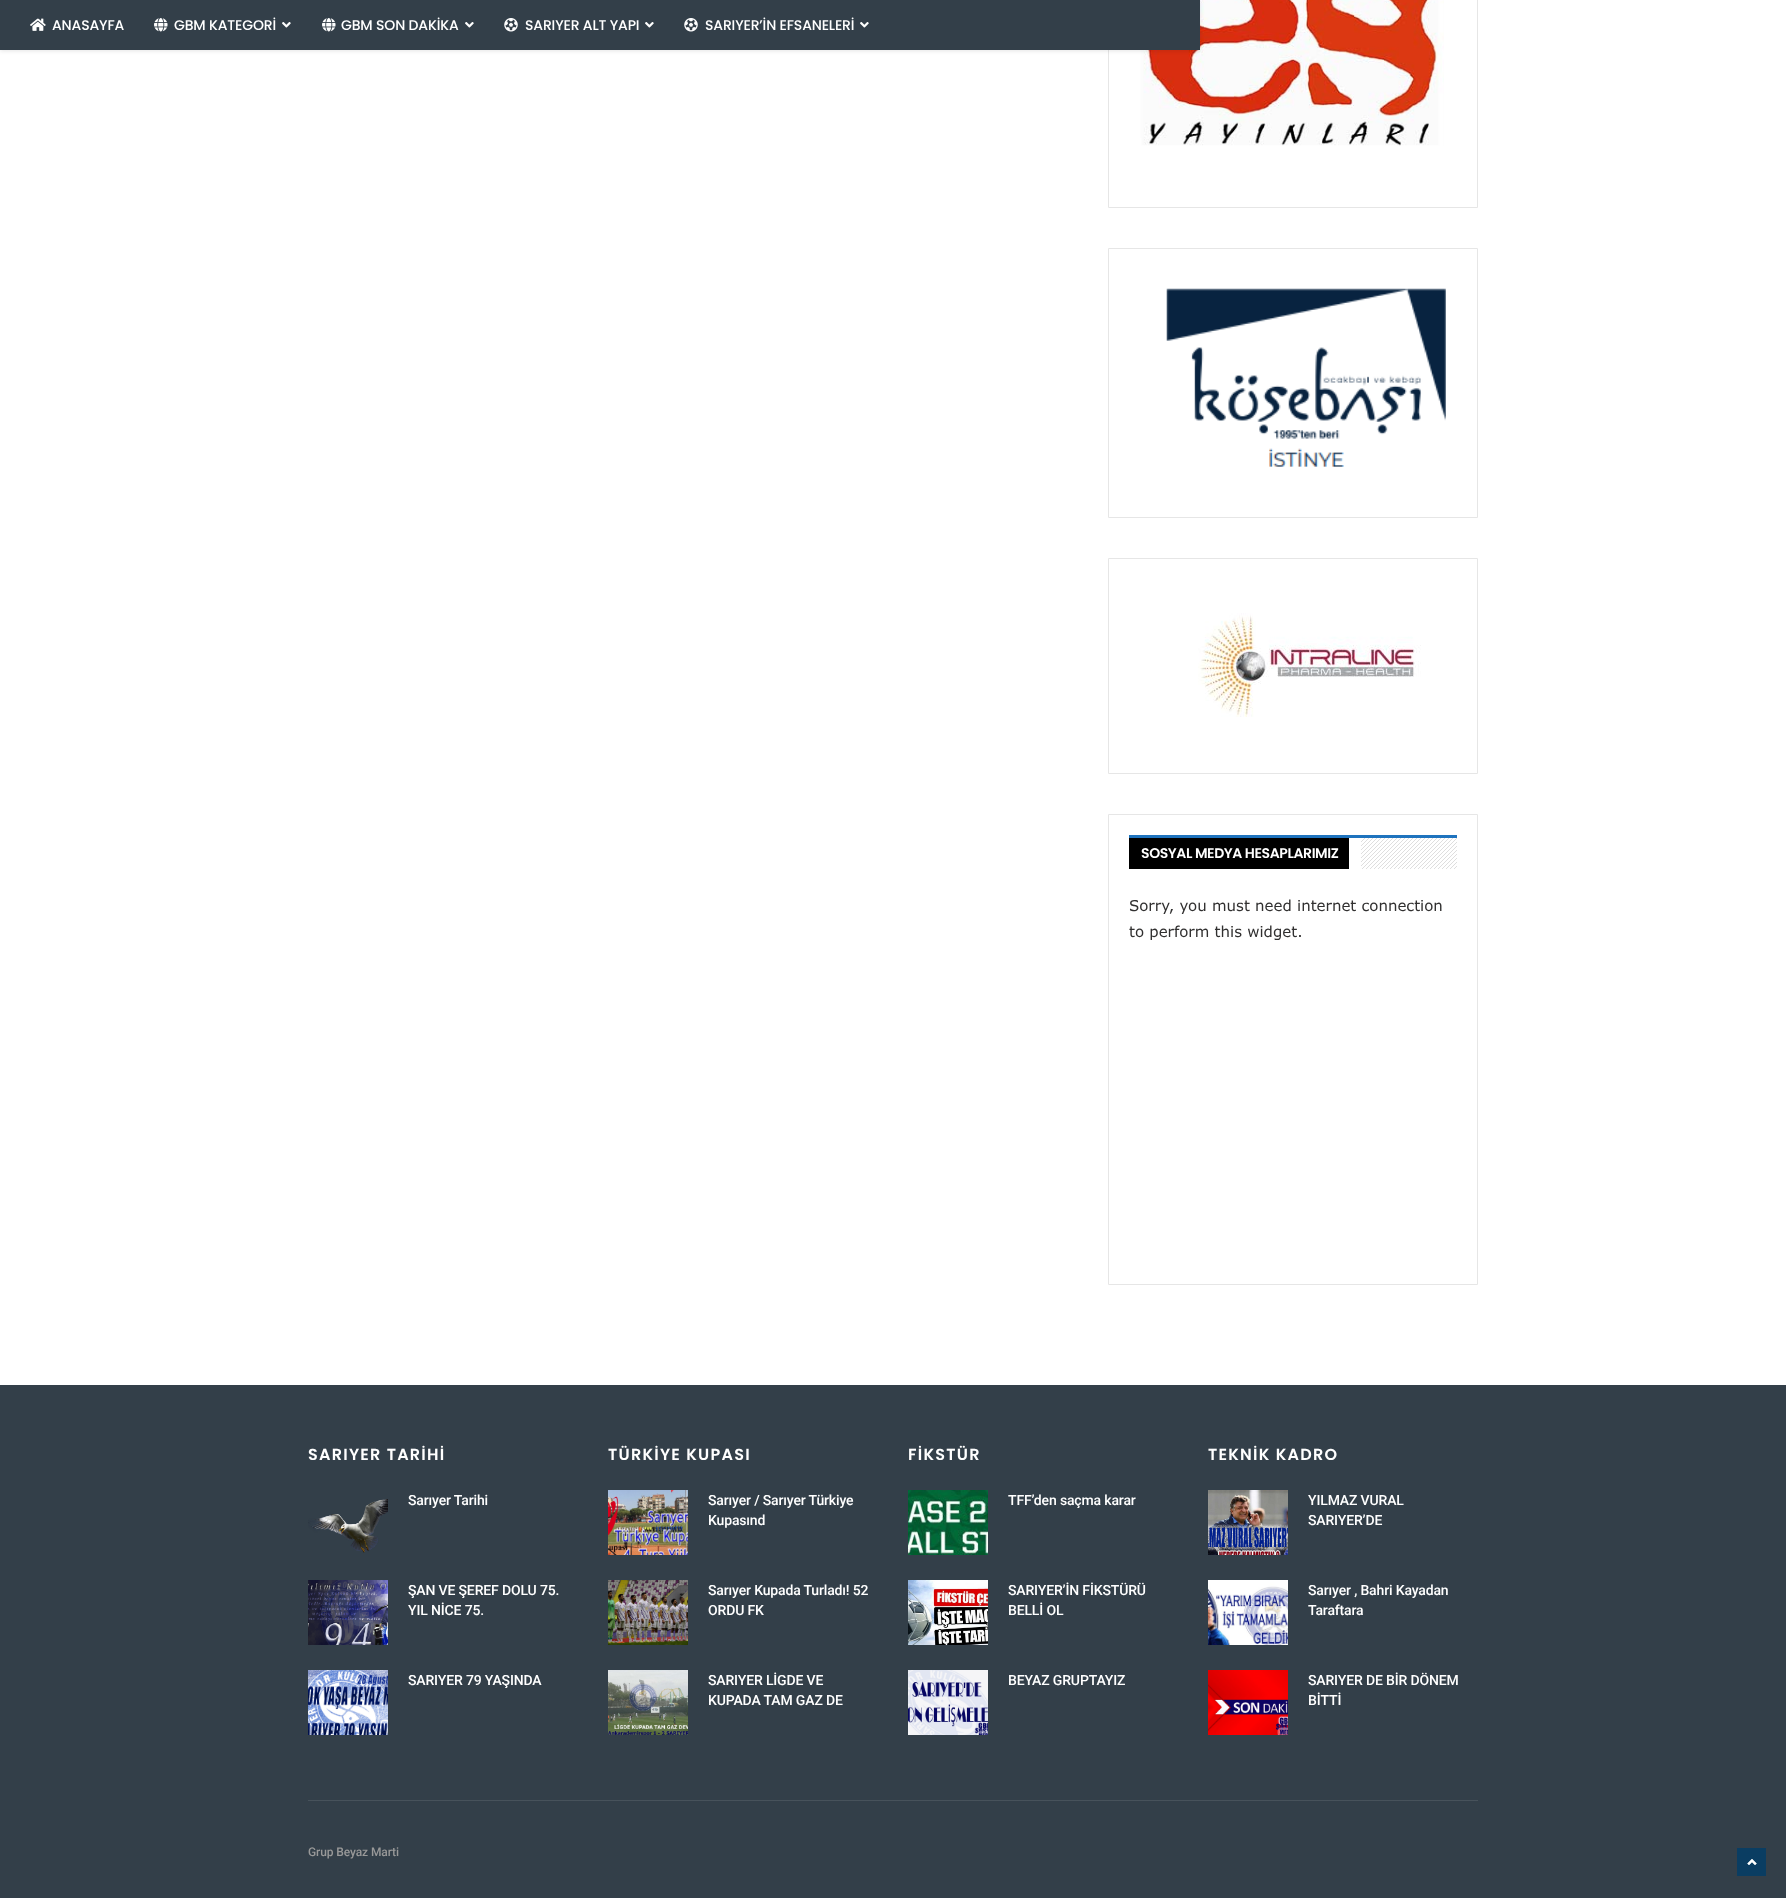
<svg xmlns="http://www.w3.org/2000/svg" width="1786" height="1898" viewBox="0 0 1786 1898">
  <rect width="100%" height="100%" fill="#fff"/>
  <path d="M1108.5 -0.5h369v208H1108.5z" fill="none" stroke="#e6e6e6"/>
  <image x="1129" y="0" width="315" height="146" href="img/5.png"/>
  <path d="M0 1h1200v50H0z" fill="#0000001a" filter="blur(2px)"/>
  <path d="M0 0h1200v50H0z" fill="#333f49"/>
  <image x="30" y="18" width="16" height="13" href="img/1.png"/>
  <image x="154" y="18" width="14" height="14" href="img/2.png"/>
  <image x="282" y="22" width="9" height="6" href="img/3.png"/>
  <image x="322" y="18" width="14" height="14" href="img/2.png"/>
  <image x="465" y="22" width="9" height="6" href="img/3.png"/>
  <image x="504" y="18" width="14" height="14" href="img/4.png"/>
  <image x="645" y="22" width="9" height="6" href="img/3.png"/>
  <image x="684" y="18" width="14" height="14" href="img/4.png"/>
  <image x="860" y="22" width="9" height="6" href="img/3.png"/>
  <path d="M1108.5 248.5h369v269H1108.5z" fill="none" stroke="#e6e6e6"/>
  <image x="1166" y="288" width="280" height="179" href="img/6.png"/>
  <path d="M1108.5 558.5h369v215H1108.5z" fill="none" stroke="#e6e6e6"/>
  <image x="1198" y="613" width="223" height="104" href="img/7.png"/>
  <path d="M1108.5 814.5h369v470H1108.5z" fill="none" stroke="#e6e6e6"/>
  <path d="M1129 835h328v3H1129z" fill="#1e73be"/>
  <path d="M1129 838h220v31H1129z" fill="#000"/>
  <image x="1361" y="838" width="96" height="31" href="img/8.png"/>
  <path d="M0 1385h1786v513H0z" fill="#333f49"/>
  <path d="M308 1800h1170v1H308z" fill="#47525b"/>
  <image x="308" y="1499" width="80" height="54" href="img/9.png"/>
  <image x="308" y="1580" width="80" height="65" href="img/10.png"/>
  <image x="308" y="1670" width="80" height="65" href="img/11.png"/>
  <image x="608" y="1490" width="80" height="65" href="img/12.png"/>
  <image x="608" y="1580" width="80" height="65" href="img/13.png"/>
  <image x="608" y="1670" width="80" height="65" href="img/14.png"/>
  <image x="908" y="1490" width="80" height="65" href="img/15.png"/>
  <image x="908" y="1580" width="80" height="65" href="img/16.png"/>
  <image x="908" y="1670" width="80" height="65" href="img/17.png"/>
  <image x="1208" y="1490" width="80" height="65" href="img/18.png"/>
  <image x="1208" y="1580" width="80" height="65" href="img/19.png"/>
  <image x="1208" y="1670" width="80" height="65" href="img/20.png"/>
  <path d="M1737 1848h29v28H1737z" fill="#0a3d62"/>
  <image x="1747" y="1859" width="10" height="6" href="img/21.png"/>
  <g font-family="Poppins" font-size="14" font-weight="500" letter-spacing="-0.15" fill="#fff">
    <text x="52" y="30">ANASAYFA</text>
    <text x="174" y="30">GBM KATEGORİ</text>
    <text x="341" y="30">GBM SON DAKİKA</text>
    <text x="525" y="30">SARIYER ALT YAPI</text>
    <text x="705" y="30">SARIYER’İN EFSANELERİ</text>
  </g>
  <text x="1141" y="858" font-family="Poppins" font-size="14" font-weight="600" letter-spacing="-0.4" fill="#fff">SOSYAL MEDYA HESAPLARIMIZ</text>
  <g font-family="Verdana" font-size="15" fill="#313030">
    <text x="1129" y="911">Sorry, you must need internet connection</text>
    <text x="1129" y="937">to perform this widget.</text>
  </g>
  <text x="308" y="1460" font-family="Poppins" font-size="16" font-weight="600" letter-spacing="1.25" fill="#fff">SARIYER TARİHİ</text>
  <g font-family="Roboto" font-size="14" font-weight="500" letter-spacing="-0.15" fill="#fff">
    <text x="408" y="1505">Sarıyer Tarihi</text>
    <text x="408" y="1595">ŞAN VE ŞEREF DOLU 75.</text>
    <text x="408" y="1615">YIL NİCE 75.</text>
    <text x="408" y="1685">SARIYER 79 YAŞINDA</text>
  </g>
  <text x="608" y="1460" font-family="Poppins" font-size="16" font-weight="600" letter-spacing="1.25" fill="#fff">TÜRKİYE KUPASI</text>
  <g font-family="Roboto" font-size="14" font-weight="500" letter-spacing="-0.15" fill="#fff">
    <text x="708" y="1505">Sarıyer / Sarıyer Türkiye</text>
    <text x="708" y="1525">Kupasınd</text>
    <text x="708" y="1595">Sarıyer Kupada Turladı! 52</text>
    <text x="708" y="1615">ORDU FK</text>
    <text x="708" y="1685">SARIYER LİGDE VE</text>
    <text x="708" y="1705">KUPADA TAM GAZ DE</text>
  </g>
  <text x="908" y="1460" font-family="Poppins" font-size="16" font-weight="600" letter-spacing="1.25" fill="#fff">FİKSTÜR</text>
  <g font-family="Roboto" font-size="14" font-weight="500" letter-spacing="-0.15" fill="#fff">
    <text x="1008" y="1505">TFF’den saçma karar</text>
    <text x="1008" y="1595">SARIYER’İN FİKSTÜRÜ</text>
    <text x="1008" y="1615">BELLİ OL</text>
    <text x="1008" y="1685">BEYAZ GRUPTAYIZ</text>
  </g>
  <text x="1208" y="1460" font-family="Poppins" font-size="16" font-weight="600" letter-spacing="1.25" fill="#fff">TEKNİK KADRO</text>
  <g font-family="Roboto" font-size="14" font-weight="500" letter-spacing="-0.15" fill="#fff">
    <text x="1308" y="1505">YILMAZ VURAL</text>
    <text x="1308" y="1525">SARIYER’DE</text>
    <text x="1308" y="1595">Sarıyer , Bahri Kayadan</text>
    <text x="1308" y="1615">Taraftara</text>
    <text x="1308" y="1685">SARIYER DE BİR DÖNEM</text>
    <text x="1308" y="1705">BİTTİ</text>
  </g>
  <text x="308" y="1856" font-family="Roboto" font-size="12" font-weight="500" letter-spacing="-0.1" fill="#999">Grup Beyaz Marti</text>
</svg>
